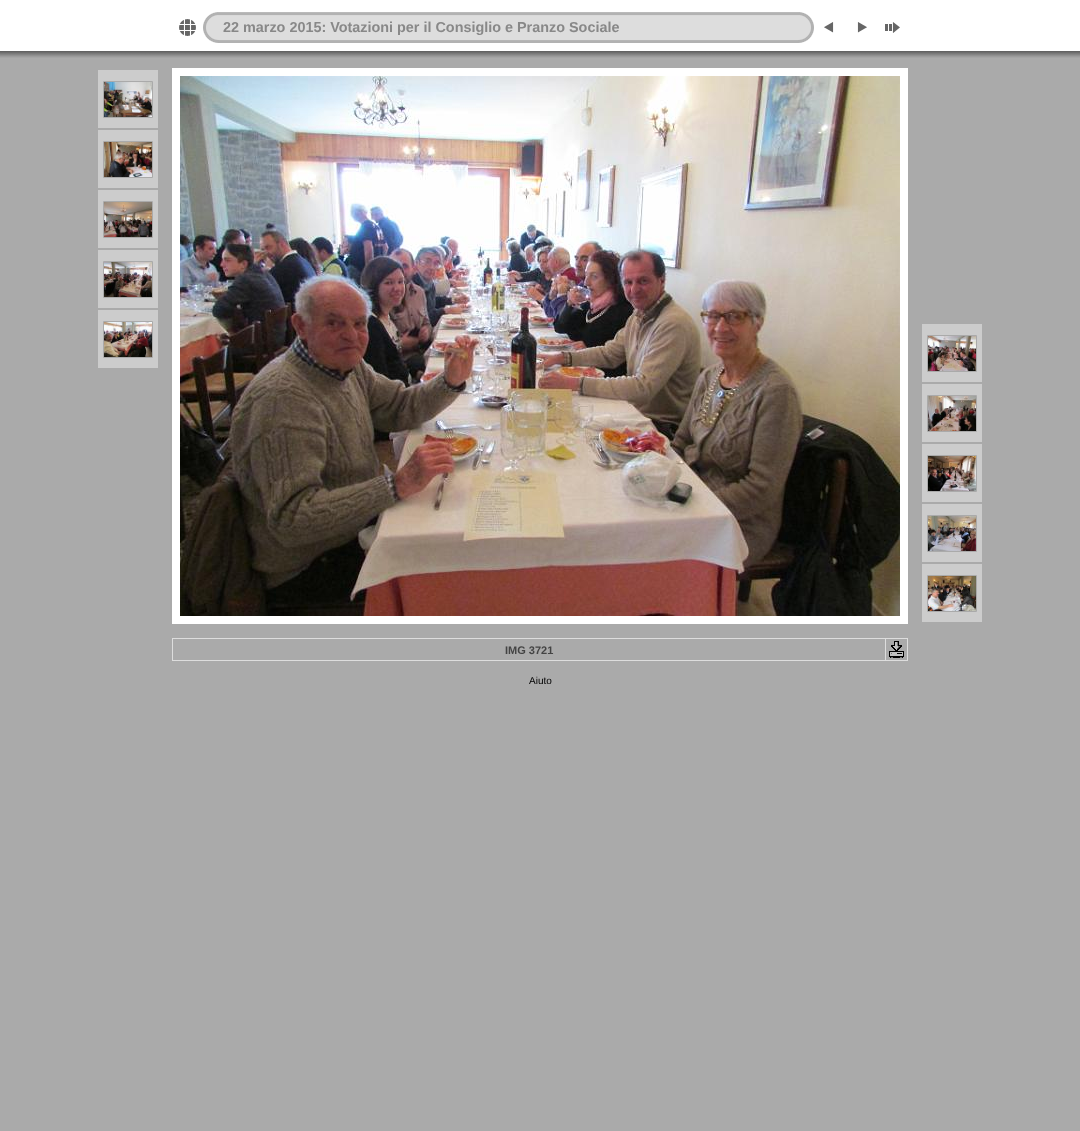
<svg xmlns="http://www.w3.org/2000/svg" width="1080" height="1131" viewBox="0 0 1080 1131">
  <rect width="100%" height="100%" fill="#aaa"/>
  <image x="0" y="0" width="1080" height="58" href="img/1.png"/>
  <image x="179" y="19" width="17" height="17" href="img/2.png"/>
  <image x="203" y="12" width="20" height="31" href="img/3.png"/>
  <image x="223" y="12" width="572" height="31" href="img/4.png"/>
  <image x="795" y="12" width="19" height="31" href="img/5.png"/>
  <image x="824" y="22" width="10" height="11" href="img/6.png"/>
  <image x="857" y="22" width="10" height="11" href="img/7.png"/>
  <image x="885" y="22" width="15" height="11" href="img/8.png"/>
  <path d="M98 70h60v58H98z" fill="#ccc"/>
  <path d="M103.5 81.5h49v36H103.5z" fill="none" stroke="#aaa"/>
  <image x="104" y="82" width="48" height="35" href="img/9.png"/>
  <path d="M98 130h60v58H98z" fill="#ccc"/>
  <path d="M103.5 141.5h49v36H103.5z" fill="none" stroke="#aaa"/>
  <image x="104" y="142" width="48" height="35" href="img/10.png"/>
  <path d="M98 190h60v58H98z" fill="#ccc"/>
  <path d="M103.5 201.5h49v36H103.5z" fill="none" stroke="#aaa"/>
  <image x="104" y="202" width="48" height="35" href="img/11.png"/>
  <path d="M98 250h60v58H98z" fill="#ccc"/>
  <path d="M103.5 261.5h49v36H103.5z" fill="none" stroke="#aaa"/>
  <image x="104" y="262" width="48" height="35" href="img/12.png"/>
  <path d="M98 310h60v58H98z" fill="#ccc"/>
  <path d="M103.5 321.5h49v36H103.5z" fill="none" stroke="#aaa"/>
  <image x="104" y="322" width="48" height="35" href="img/13.png"/>
  <path d="M176 72h728v548H176z" fill="none" stroke="#fff" stroke-width="8"/>
  <image x="180" y="76" width="720" height="540" href="img/14.png"/>
  <path d="M922 324h60v58H922z" fill="#ccc"/>
  <path d="M927.5 335.5h49v36H927.5z" fill="none" stroke="#aaa"/>
  <image x="928" y="336" width="48" height="35" href="img/15.png"/>
  <path d="M922 384h60v58H922z" fill="#ccc"/>
  <path d="M927.5 395.5h49v36H927.5z" fill="none" stroke="#aaa"/>
  <image x="928" y="396" width="48" height="35" href="img/16.png"/>
  <path d="M922 444h60v58H922z" fill="#ccc"/>
  <path d="M927.5 455.5h49v36H927.5z" fill="none" stroke="#aaa"/>
  <image x="928" y="456" width="48" height="35" href="img/17.png"/>
  <path d="M922 504h60v58H922z" fill="#ccc"/>
  <path d="M927.5 515.5h49v36H927.5z" fill="none" stroke="#aaa"/>
  <image x="928" y="516" width="48" height="35" href="img/18.png"/>
  <path d="M922 564h60v58H922z" fill="#ccc"/>
  <path d="M927.5 575.5h49v36H927.5z" fill="none" stroke="#aaa"/>
  <image x="928" y="576" width="48" height="35" href="img/19.png"/>
  <path d="M172 638h736v1H172z" fill="#ddd"/>
  <path d="M907 638h1v23H907z" fill="#ddd"/>
  <path d="M172 660h736v1H172z" fill="#ddd"/>
  <path d="M172 638h1v23H172z" fill="#ddd"/>
  <path d="M885 638h1v23H885z" fill="#ddd"/>
  <image x="889" y="641" width="15" height="17" href="img/20.png"/>
  <text x="223" y="32" font-family="Liberation Sans" font-size="14.4" font-weight="bold" fill="#888">22 marzo 2015: Votazioni per il Consiglio e Pranzo Sociale</text>
  <text x="505" y="654" font-family="Liberation Sans" font-size="11" font-weight="bold" fill="#444">IMG 3721</text>
  <text x="529" y="684" font-family="Liberation Sans" font-size="10" fill="#000">Aiuto</text>
</svg>
